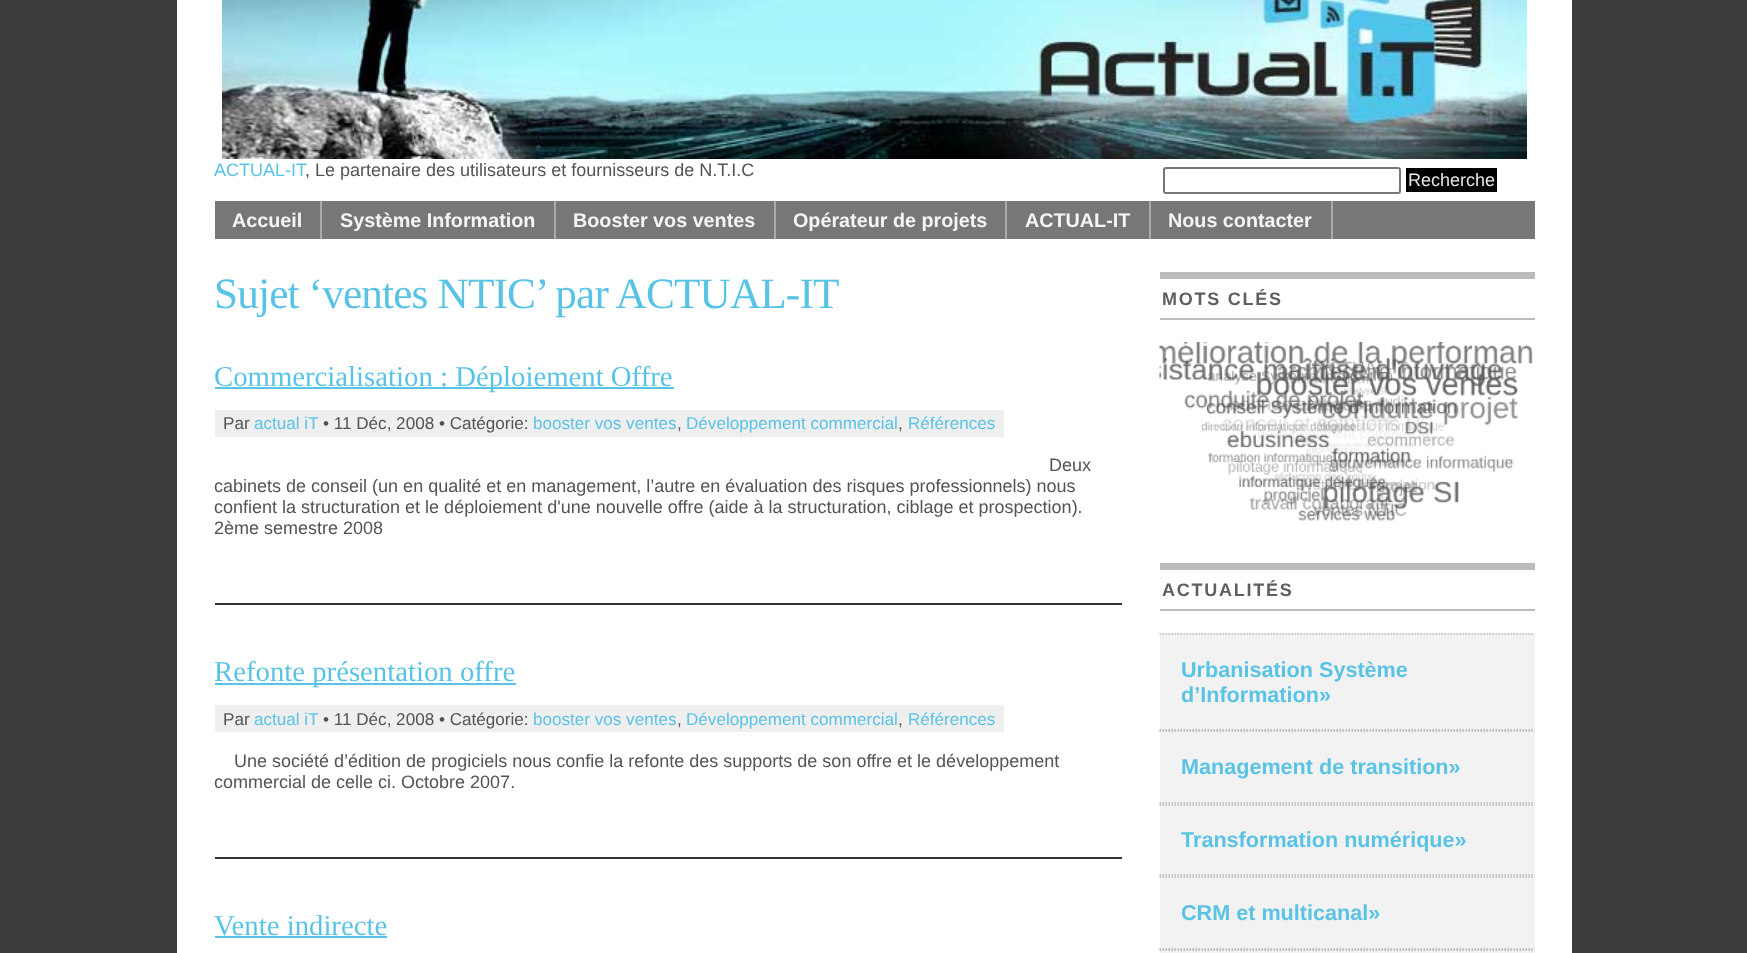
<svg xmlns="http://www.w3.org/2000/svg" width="1747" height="953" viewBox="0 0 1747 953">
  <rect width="100%" height="100%" fill="#3c3c3c"/>
  <path d="M177 0h1395v953H177z" fill="#fff"/>
  <image x="222" y="0" width="1305" height="159" href="img/1.png"/>
  <rect x="1164" y="168" width="236" height="25" rx="2" fill="none" stroke="#767676" stroke-width="2"/>
  <path d="M1406 168h91v24H1406z" fill="#000"/>
  <path d="M215 201h1320v38H215z" fill="#777"/>
  <path d="M320 201h2v38H320z" fill="#a9a9a9"/>
  <path d="M554 201h2v38H554z" fill="#a9a9a9"/>
  <path d="M774 201h2v38H774z" fill="#a9a9a9"/>
  <path d="M1005 201h2v38H1005z" fill="#a9a9a9"/>
  <path d="M1149 201h2v38H1149z" fill="#a9a9a9"/>
  <path d="M1331 201h2v38H1331z" fill="#a9a9a9"/>
  <path d="M215 387h459v2H215z" fill="#59c3e6"/>
  <path d="M215 410h789v27H215z" fill="#efefef"/>
  <path d="M215 603h907v2H215z" fill="#333"/>
  <path d="M215 683h301v2H215z" fill="#59c3e6"/>
  <path d="M215 705h789v27H215z" fill="#efefef"/>
  <path d="M215 857h907v2H215z" fill="#333"/>
  <path d="M215 936h172v2H215z" fill="#59c3e6"/>
  <path d="M1160 272h375v7H1160z" fill="#bbb"/>
  <path d="M1160 318h375v2H1160z" fill="#bbb"/>
  <image x="1159" y="342" width="374" height="179" href="img/2.png"/>
  <path d="M1160 563h375v7H1160z" fill="#bbb"/>
  <path d="M1160 609h375v2H1160z" fill="#bbb"/>
  <path d="M1160 633h375v320H1160z" fill="#f2f2f2"/>
  <path d="M1159.5 634H1534.5" fill="none" stroke="#b6b6b6" stroke-width="1.5" stroke-dasharray="1.5 1.5"/>
  <path d="M1159.5 730H1534.5" fill="none" stroke="#b6b6b6" stroke-width="1.5" stroke-dasharray="1.5 1.5"/>
  <path d="M1159.5 731H1534.5" fill="none" stroke="#b6b6b6" stroke-width="1.5" stroke-dasharray="1.5 1.5"/>
  <path d="M1159.5 803H1534.5" fill="none" stroke="#b6b6b6" stroke-width="1.5" stroke-dasharray="1.5 1.5"/>
  <path d="M1159.5 805H1534.5" fill="none" stroke="#b6b6b6" stroke-width="1.5" stroke-dasharray="1.5 1.5"/>
  <path d="M1159.5 875H1534.5" fill="none" stroke="#b6b6b6" stroke-width="1.5" stroke-dasharray="1.5 1.5"/>
  <path d="M1159.5 877H1534.5" fill="none" stroke="#b6b6b6" stroke-width="1.5" stroke-dasharray="1.5 1.5"/>
  <path d="M1159.5 949H1534.5" fill="none" stroke="#b6b6b6" stroke-width="1.5" stroke-dasharray="1.5 1.5"/>
  <path d="M1159.5 950H1534.5" fill="none" stroke="#b6b6b6" stroke-width="1.5" stroke-dasharray="1.5 1.5"/>
  <text x="214" y="176" font-family="Liberation Sans" font-size="18" fill="#59c3e6">ACTUAL-IT</text>
  <text x="305" y="176" font-family="Liberation Sans" font-size="18" fill="#545454">, Le partenaire des utilisateurs et fournisseurs de N.T.I.C</text>
  <text x="1408" y="186" font-family="Liberation Sans" font-size="18" fill="#e7e7e7">Recherche</text>
  <g font-family="Liberation Sans" font-size="19.75" font-weight="bold" fill="#f5f5f4">
    <text x="232" y="227">Accueil</text>
    <text x="340" y="227">Système Information</text>
    <text x="573" y="227">Booster vos ventes</text>
    <text x="793" y="227">Opérateur de projets</text>
    <text x="1025" y="227">ACTUAL-IT</text>
    <text x="1168" y="227">Nous contacter</text>
  </g>
  <text x="214" y="308" font-family="Liberation Serif" font-size="43.25" letter-spacing="-0.85" fill="#59c3e6">Sujet ‘ventes NTIC’ par ACTUAL-IT</text>
  <text x="214" y="386" font-family="Liberation Serif" font-size="28.75" fill="#59c3e6">Commercialisation : Déploiement Offre</text>
  <text x="223" y="429" font-family="Liberation Sans" font-size="17.1" fill="#545454">Par</text>
  <text x="254" y="429" font-family="Liberation Sans" font-size="17.1" fill="#59c3e6">actual iT</text>
  <text x="323" y="429" font-family="Liberation Sans" font-size="17.1" fill="#545454">• 11 Déc, 2008 • Catégorie:</text>
  <text x="533" y="429" font-family="Liberation Sans" font-size="17.1" fill="#59c3e6">booster vos ventes</text>
  <text x="677" y="429" font-family="Liberation Sans" font-size="17.1" fill="#545454">,</text>
  <text x="686" y="429" font-family="Liberation Sans" font-size="17.1" fill="#59c3e6">Développement commercial</text>
  <text x="898" y="429" font-family="Liberation Sans" font-size="17.1" fill="#545454">,</text>
  <text x="908" y="429" font-family="Liberation Sans" font-size="17.1" fill="#59c3e6">Références</text>
  <g font-family="Liberation Sans" font-size="18" fill="#545454">
    <text x="1049" y="471">Deux</text>
    <text x="214" y="492">cabinets de conseil (un en qualité et en management, l’autre en évaluation des risques professionnels) nous</text>
    <text x="214" y="513">confient la structuration et le déploiement d'une nouvelle offre (aide à la structuration, ciblage et prospection).</text>
    <text x="214" y="534">2ème semestre 2008</text>
  </g>
  <text x="214" y="681" font-family="Liberation Serif" font-size="28.75" fill="#59c3e6">Refonte présentation offre</text>
  <text x="223" y="725" font-family="Liberation Sans" font-size="17.1" fill="#545454">Par</text>
  <text x="254" y="725" font-family="Liberation Sans" font-size="17.1" fill="#59c3e6">actual iT</text>
  <text x="323" y="725" font-family="Liberation Sans" font-size="17.1" fill="#545454">• 11 Déc, 2008 • Catégorie:</text>
  <text x="533" y="725" font-family="Liberation Sans" font-size="17.1" fill="#59c3e6">booster vos ventes</text>
  <text x="677" y="725" font-family="Liberation Sans" font-size="17.1" fill="#545454">,</text>
  <text x="686" y="725" font-family="Liberation Sans" font-size="17.1" fill="#59c3e6">Développement commercial</text>
  <text x="898" y="725" font-family="Liberation Sans" font-size="17.1" fill="#545454">,</text>
  <text x="908" y="725" font-family="Liberation Sans" font-size="17.1" fill="#59c3e6">Références</text>
  <g font-family="Liberation Sans" font-size="18" fill="#545454">
    <text x="234" y="767">Une société d’édition de progiciels nous confie la refonte des supports de son offre et le développement</text>
    <text x="214" y="788">commercial de celle ci. Octobre 2007.</text>
  </g>
  <text x="214" y="935" font-family="Liberation Serif" font-size="28.75" fill="#59c3e6">Vente indirecte</text>
  <g font-family="Liberation Sans" font-size="18" font-weight="bold" letter-spacing="1.75" fill="#5f5f5f">
    <text x="1162" y="305">MOTS CLÉS</text>
    <text x="1162" y="596">ACTUALITÉS</text>
  </g>
  <g font-family="Liberation Sans" font-size="21.6" font-weight="bold" fill="#59c3e6">
    <text x="1181" y="677">Urbanisation Système</text>
    <text x="1181" y="702">d’Information»</text>
    <text x="1181" y="774">Management de transition»</text>
    <text x="1181" y="847">Transformation numérique»</text>
    <text x="1181" y="920">CRM et multicanal»</text>
  </g>
</svg>
